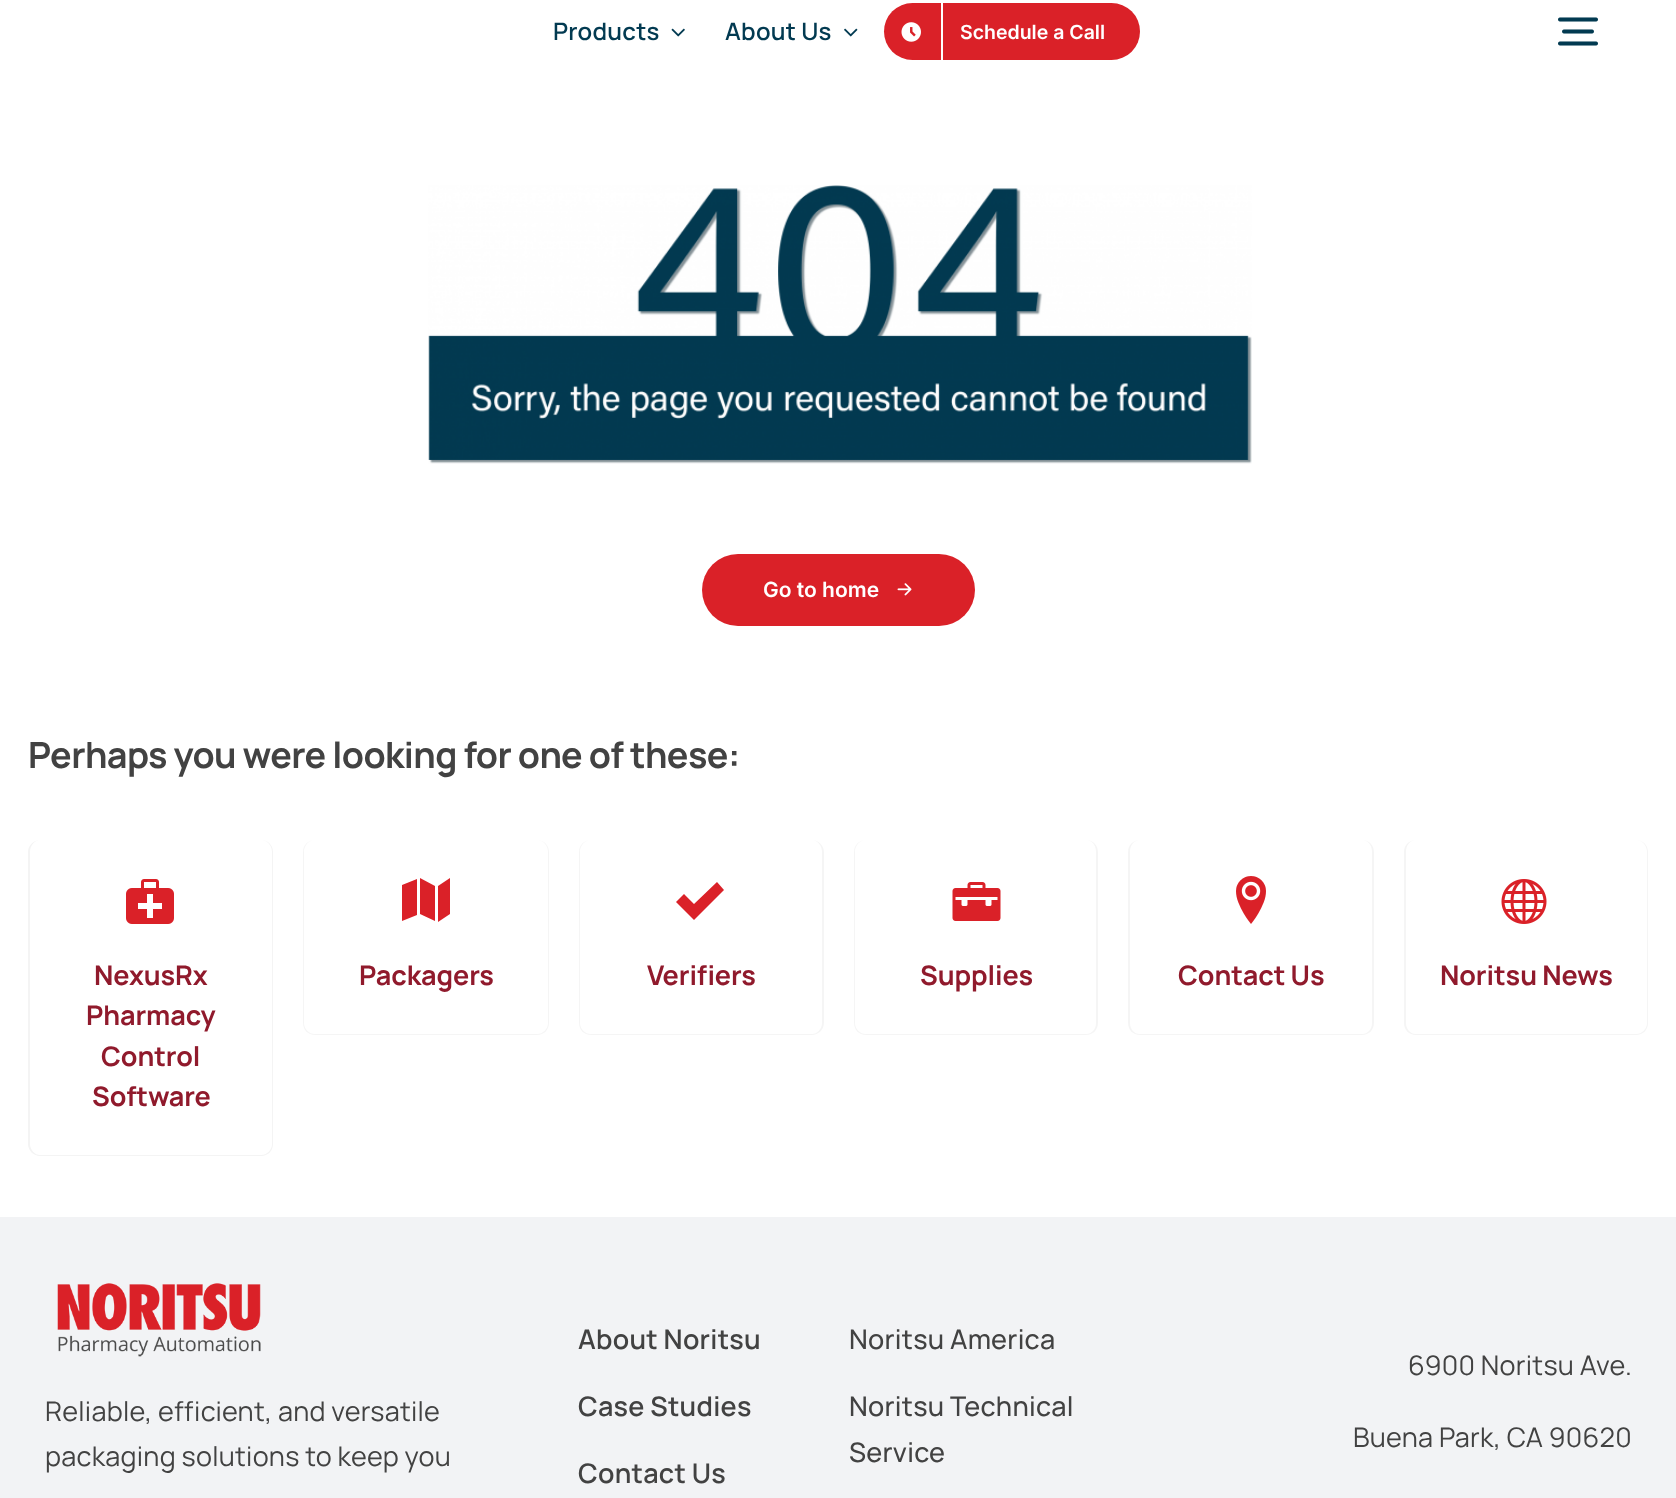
<svg xmlns="http://www.w3.org/2000/svg" width="1676" height="1498" viewBox="0 0 1676 1498">
  <rect width="100%" height="100%" fill="#fff"/>
  <image x="671" y="28" width="14" height="9" href="img/1.png"/>
  <image x="844" y="28" width="14" height="9" href="img/2.png"/>
  <rect x="884" y="3" width="256" height="57" rx="28.5" fill="#da2128"/>
  <path d="M941 3h2v57H941z" fill="#fff"/>
  <image x="901" y="22" width="20" height="20" href="img/3.png"/>
  <image x="1558" y="17" width="40" height="29" href="img/4.png"/>
  <image x="428" y="185" width="824" height="279" href="img/5.png"/>
  <rect x="702" y="554" width="273" height="72" rx="36" fill="#da2128"/>
  <image x="897" y="583" width="15" height="13" href="img/6.png"/>
  <path d="M40 840H261C268 840 273 845 273 852V1144C273 1151 268 1156 261 1156H40C34 1156 28 1151 28 1144V852C28 845 34 840 40 840ZM40 840H261C267 840 272 845 272 852V1144C272 1150 267 1155 261 1155H40C35 1155 30 1150 30 1144V852C30 845 35 840 40 840Z" fill="#f4f4f4" fill-rule="evenodd"/>
  <image x="126" y="879" width="48" height="45" href="img/7.png"/>
  <path d="M315 840H537C544 840 549 845 549 852V1023C549 1030 544 1035 537 1035H315C308 1035 303 1030 303 1023V852C303 845 308 840 315 840ZM315 840H537C543 840 548 845 548 852V1023C548 1029 543 1034 537 1034H315C309 1034 304 1029 304 1023V852C304 845 309 840 315 840Z" fill="#0000000a" fill-rule="evenodd"/>
  <path d="M402 885L417 879V915L402 921ZM420 878L435 886V921L420 914ZM438 886L450 878V914L438 922Z" fill="#da2128"/>
  <path d="M591 840H812C818 840 824 845 824 852V1023C824 1030 818 1035 812 1035H591C584 1035 579 1030 579 1023V852C579 845 584 840 591 840ZM591 840H812C817 840 822 845 822 852V1023C822 1029 817 1034 812 1034H591C585 1034 580 1029 580 1023V852C580 845 585 840 591 840Z" fill="#0000000a" fill-rule="evenodd"/>
  <path d="M717 882L694 904L684 894L676 902L694 920L724 890Z" fill="#da2128"/>
  <path d="M866 840H1086C1093 840 1098 845 1098 852V1023C1098 1030 1093 1035 1086 1035H866C859 1035 854 1030 854 1023V852C854 845 859 840 866 840ZM866 840H1086C1092 840 1096 845 1096 852V1023C1096 1029 1092 1034 1086 1034H866C860 1034 855 1029 855 1023V852C855 845 860 840 866 840Z" fill="#0000000a" fill-rule="evenodd"/>
  <image x="952" y="882" width="49" height="39" href="img/8.png"/>
  <path d="M1140 840H1362C1369 840 1374 845 1374 852V1023C1374 1030 1369 1035 1362 1035H1140C1133 1035 1128 1030 1128 1023V852C1128 845 1133 840 1140 840ZM1140 840H1362C1368 840 1372 845 1372 852V1023C1372 1029 1368 1034 1362 1034H1140C1134 1034 1130 1029 1130 1023V852C1130 845 1134 840 1140 840Z" fill="#0000000a" fill-rule="evenodd"/>
  <image x="1236" y="876" width="30" height="48" href="img/9.png"/>
  <path d="M1416 840H1636C1643 840 1648 845 1648 852V1023C1648 1030 1643 1035 1636 1035H1416C1409 1035 1404 1030 1404 1023V852C1404 845 1409 840 1416 840ZM1416 840H1636C1642 840 1647 845 1647 852V1023C1647 1029 1642 1034 1636 1034H1416C1410 1034 1406 1029 1406 1023V852C1406 845 1410 840 1416 840Z" fill="#f5f5f5" fill-rule="evenodd"/>
  <image x="1501" y="879" width="46" height="45" href="img/10.png"/>
  <path d="M0 1217h1676v281H0z" fill="#f2f3f5"/>
  <image x="57" y="1283" width="204" height="74" href="img/11.png"/>
  <g font-family="Manrope" font-size="24" font-weight="600" letter-spacing="0.25" fill="#023a51">
    <text x="553" y="40">Products</text>
    <text x="725" y="40">About Us</text>
  </g>
  <text x="960" y="39" font-family="Inter" font-size="19.5" font-weight="600" fill="#fff">Schedule a Call</text>
  <text x="763" y="597" font-family="Inter" font-size="21" font-weight="600" fill="#fff">Go to home</text>
  <text x="28" y="768" font-family="Manrope" font-size="36" font-weight="bold" letter-spacing="-0.6" fill="#424242">Perhaps you were looking for one of these:</text>
  <g font-family="Manrope" font-size="27" font-weight="bold" letter-spacing="-0.1" fill="#901a2c">
    <text x="94" y="985">NexusRx</text>
    <text x="86" y="1025">Pharmacy</text>
    <text x="101" y="1066">Control</text>
    <text x="92" y="1106">Software</text>
    <text x="359" y="985">Packagers</text>
    <text x="647" y="985">Verifiers</text>
    <text x="920" y="985">Supplies</text>
    <text x="1178" y="985">Contact Us</text>
    <text x="1440" y="985">Noritsu News</text>
  </g>
  <g font-family="Manrope" font-size="27" letter-spacing="0.25" fill="#424242">
    <text x="45" y="1421">Reliable, efficient, and versatile</text>
    <text x="45" y="1466">packaging solutions to keep you</text>
  </g>
  <g font-family="Manrope" font-size="27" font-weight="600" letter-spacing="0.25" fill="#424242">
    <text x="578" y="1349">About Noritsu</text>
    <text x="578" y="1416">Case Studies</text>
    <text x="578" y="1483">Contact Us</text>
  </g>
  <g font-family="Manrope" font-size="27" font-weight="500" letter-spacing="0.25" fill="#424242">
    <text x="849" y="1349">Noritsu America</text>
    <text x="849" y="1416">Noritsu Technical</text>
    <text x="849" y="1462">Service</text>
  </g>
  <g font-family="Manrope" font-size="27" letter-spacing="0.25" fill="#424242">
    <text x="1408" y="1375">6900 Noritsu Ave.</text>
    <text x="1353" y="1447">Buena Park, CA 90620</text>
  </g>
</svg>
